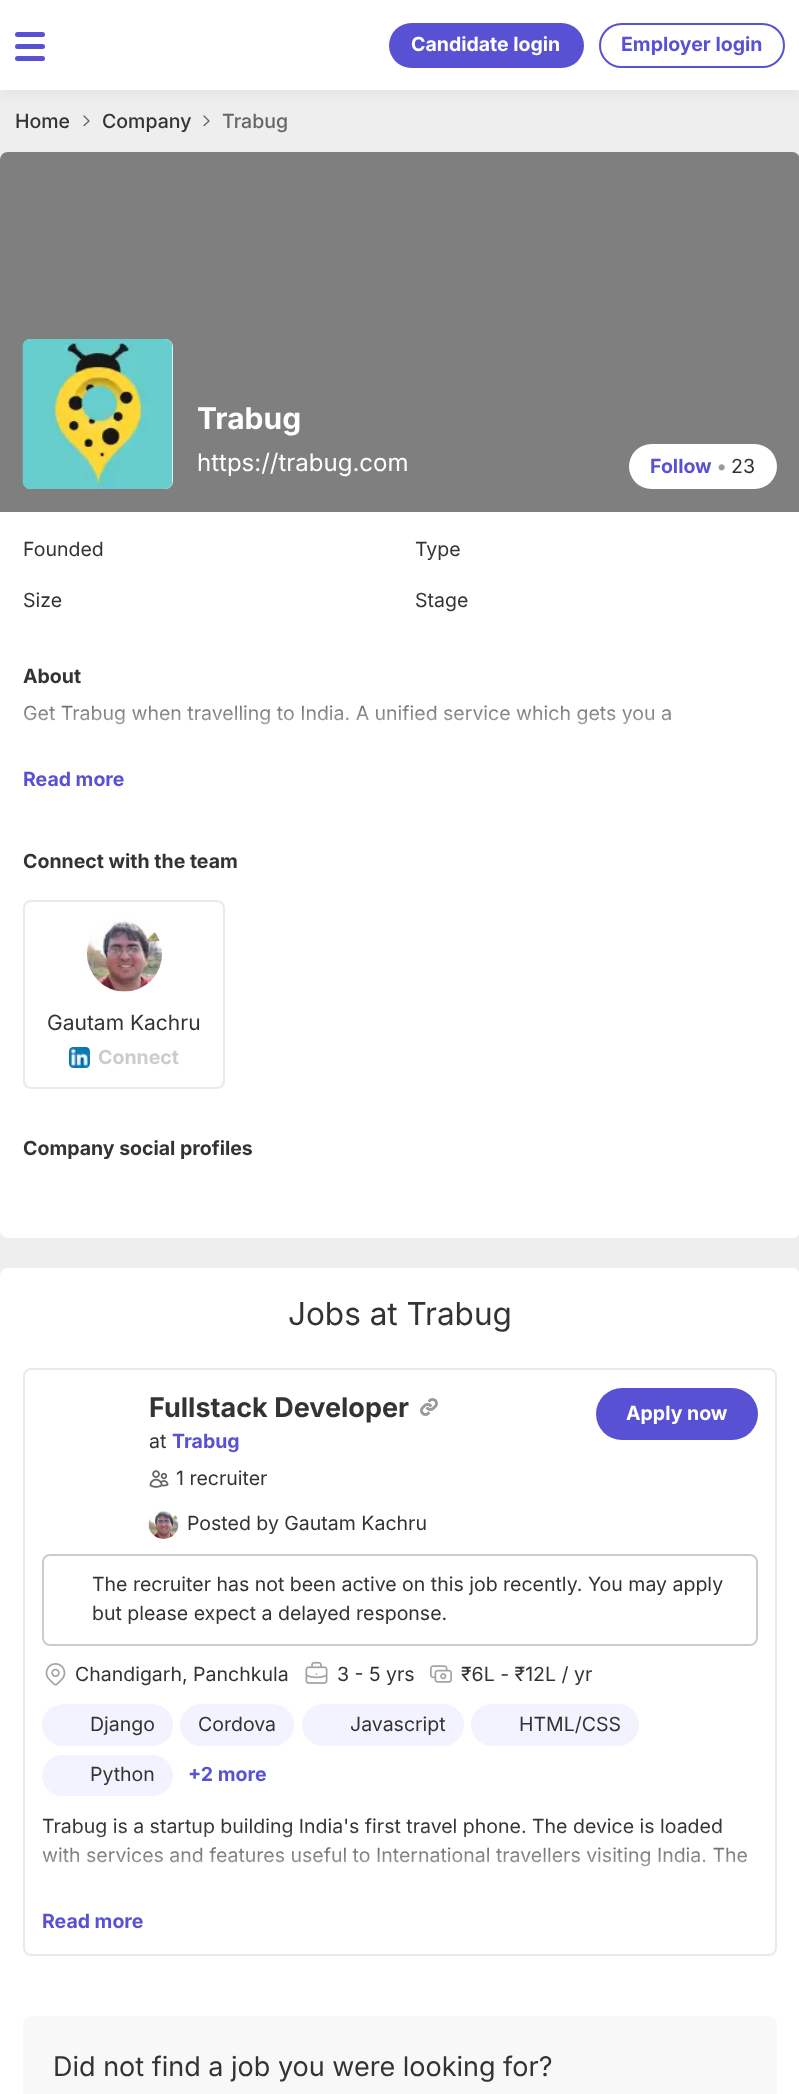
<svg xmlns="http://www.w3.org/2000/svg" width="799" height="2094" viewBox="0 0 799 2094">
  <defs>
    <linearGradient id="g1" gradientUnits="userSpaceOnUse" x1="400" y1="758" x2="400" y2="683"><stop offset="0" stop-color="#fff"/><stop offset="1" stop-color="#fff" stop-opacity="0"/></linearGradient>
    <linearGradient id="g2" gradientUnits="userSpaceOnUse" x1="400" y1="1901" x2="400" y2="1826"><stop offset="0" stop-color="#fff"/><stop offset="1" stop-color="#fff" stop-opacity="0"/></linearGradient>
  </defs>
  <rect width="100%" height="100%" fill="#eee"/>
  <path d="M2 6h796v87H2z" fill="#0000000d" filter="blur(7px)"/>
  <path d="M0 0h799v90H0z" fill="#fff"/>
  <rect x="15" y="32" width="30" height="5" rx="2.5" fill="#5851d3"/>
  <rect x="15" y="44" width="30" height="5" rx="2.5" fill="#5851d3"/>
  <rect x="15" y="56" width="30" height="5" rx="2.5" fill="#5851d3"/>
  <rect x="389" y="23" width="195" height="45" rx="22.5" fill="#5851d3"/>
  <rect x="600" y="24" width="184" height="43" rx="21.5" fill="none" stroke="#5851d3" stroke-width="2"/>
  <path d="M84 116L89 121L84 125.5" fill="none" stroke="#666" stroke-width="1.4" stroke-linecap="round" stroke-linejoin="round"/>
  <path d="M204 116L209 121L204 125.5" fill="none" stroke="#666" stroke-width="1.4" stroke-linecap="round" stroke-linejoin="round"/>
  <path d="M8 152H792C796.5 152 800 155.5 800 160V512H0V160C0 155.5 3.5 152 8 152Z" fill="#fff"/>
  <path d="M8 152H792C796.5 152 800 155.5 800 160V512H0V160C0 155.5 3.5 152 8 152Z" fill="#00000080"/>
  <rect x="23" y="339" width="150" height="150" rx="8" fill="#fff"/>
  <image x="22" y="339" width="151" height="150" href="img/1.png"/>
  <rect x="629" y="444" width="148" height="45" rx="22.5" fill="#fff"/>
  <path d="M0 512H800V1230C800 1234.5 796.5 1238 792 1238H8C3.5 1238 0 1234.5 0 1230Z" fill="#fff"/>
  <rect x="24" y="901" width="200" height="187" rx="7" fill="none" stroke="#eaeaea" stroke-width="2"/>
  <circle cx="124.5" cy="954.5" r="37.5" fill="#eee"/>
  <image x="87" y="917" width="75" height="75" href="img/2.png"/>
  <image x="69" y="1047" width="21" height="21" href="img/3.png"/>
  <path d="M8 1268H792C796.5 1268 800 1271.5 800 1276V2094H0V1276C0 1271.5 3.5 1268 8 1268Z" fill="#fff"/>
  <rect x="24" y="1369" width="752" height="586" rx="7" fill="none" stroke="#eaeaea" stroke-width="2"/>
  <image x="420" y="1398" width="18" height="18" href="img/4.png"/>
  <image x="149" y="1470" width="20" height="18" href="img/5.png"/>
  <image x="148" y="1510" width="31" height="29" href="img/6.png"/>
  <rect x="596" y="1388" width="162" height="52" rx="26" fill="#5851d3"/>
  <rect x="43" y="1555" width="714" height="90" rx="7" fill="none" stroke="#ccc" stroke-width="2"/>
  <image x="45" y="1663" width="21" height="23" href="img/7.png"/>
  <image x="305" y="1661" width="23" height="23" href="img/8.png"/>
  <image x="430" y="1665" width="22" height="18" href="img/9.png"/>
  <rect x="42" y="1704" width="131" height="42" rx="21" fill="#f3f2ff"/>
  <rect x="180" y="1704" width="114" height="42" rx="21" fill="#f3f2ff"/>
  <rect x="302" y="1704" width="162" height="42" rx="21" fill="#f3f2ff"/>
  <rect x="471" y="1704" width="168" height="42" rx="21" fill="#f3f2ff"/>
  <rect x="42" y="1755" width="131" height="41" rx="20.5" fill="#f3f2ff"/>
  <path d="M31 2016H769C773.5 2016 777 2019.5 777 2024V2094H23V2024C23 2019.5 26.5 2016 31 2016Z" fill="#f8f8f8"/>
  <text x="411" y="51" font-family="Inter" font-size="19.5" font-weight="bold" fill="#fff">Candidate login</text>
  <text x="621" y="51" font-family="Inter" font-size="19.5" font-weight="bold" fill="#5851d3">Employer login</text>
  <g font-family="Inter" font-size="19.5" font-weight="500" fill="#333">
    <text x="15" y="128">Home</text>
    <text x="102" y="128">Company</text>
  </g>
  <text x="222" y="128" font-family="Inter" font-size="19.5" font-weight="500" fill="#666">Trabug</text>
  <text x="197" y="429" font-family="Inter" font-size="30" font-weight="bold" fill="#fff">Trabug</text>
  <text x="197" y="471" font-family="Inter" font-size="24" fill="#fff">https://trabug.com</text>
  <text x="650" y="473" font-family="Inter" font-size="19.5" font-weight="bold" fill="#5851d3">Follow</text>
  <text x="717" y="473" font-family="Inter" font-size="19.5" font-weight="bold" fill="#999">•</text>
  <g font-family="Inter" font-size="19.5" fill="#333">
    <text x="731" y="473">23</text>
    <text x="23" y="556">Founded</text>
    <text x="415" y="556">Type</text>
    <text x="23" y="607">Size</text>
    <text x="415" y="607">Stage</text>
  </g>
  <text x="23" y="683" font-family="Inter" font-size="19.5" font-weight="bold" fill="#333">About</text>
  <text x="23" y="720" font-family="Inter" font-size="19.5" fill="#333">Get Trabug when travelling to India. A unified service which gets you a</text>
  <path d="M23 705h647v20H23z" fill="url(#g1)"/>
  <text x="23" y="786" font-family="Inter" font-size="19.5" font-weight="bold" fill="#5851d3">Read more</text>
  <text x="23" y="868" font-family="Inter" font-size="19.5" font-weight="bold" fill="#333">Connect with the team</text>
  <text x="47" y="1030" font-family="Inter" font-size="21" fill="#333">Gautam Kachru</text>
  <text x="98" y="1064" font-family="Inter" font-size="19.5" font-weight="bold" fill="#ccc">Connect</text>
  <text x="23" y="1155" font-family="Inter" font-size="19.5" font-weight="bold" fill="#333">Company social profiles</text>
  <text x="288" y="1325" font-family="Inter" font-size="31.5" fill="#333">Jobs at Trabug</text>
  <text x="149" y="1417" font-family="Inter" font-size="27" font-weight="bold" fill="#333">Fullstack Developer</text>
  <text x="149" y="1448" font-family="Inter" font-size="19.5" fill="#333">at</text>
  <text x="172" y="1448" font-family="Inter" font-size="19.5" font-weight="bold" fill="#5851d3">Trabug</text>
  <g font-family="Inter" font-size="19.5" fill="#333">
    <text x="176" y="1485">1 recruiter</text>
    <text x="187" y="1530">Posted by Gautam Kachru</text>
  </g>
  <text x="626" y="1420" font-family="Inter" font-size="19.5" font-weight="bold" fill="#fff">Apply now</text>
  <g font-family="Inter" font-size="19.5" fill="#333">
    <text x="92" y="1591">The recruiter has not been active on this job recently. You may apply</text>
    <text x="92" y="1620">but please expect a delayed response.</text>
    <text x="75" y="1681">Chandigarh, Panchkula</text>
    <text x="337" y="1681">3 - 5 yrs</text>
    <text x="461" y="1681">₹6L - ₹12L / yr</text>
    <text x="90" y="1731">Django</text>
    <text x="198" y="1731">Cordova</text>
    <text x="350" y="1731">Javascript</text>
    <text x="519" y="1731">HTML/CSS</text>
    <text x="90" y="1781">Python</text>
  </g>
  <text x="188" y="1781" font-family="Inter" font-size="19.5" font-weight="bold" fill="#5851d3">+2 more</text>
  <g font-family="Inter" font-size="19.5" fill="#333">
    <text x="42" y="1833">Trabug is a startup building India's first travel phone. The device is loaded</text>
    <text x="42" y="1862">with services and features useful to International travellers visiting India. The</text>
  </g>
  <path d="M42 1828h705v39H42z" fill="url(#g2)"/>
  <text x="42" y="1928" font-family="Inter" font-size="19.5" font-weight="bold" fill="#5851d3">Read more</text>
  <text x="53" y="2076" font-family="Inter" font-size="27" fill="#333">Did not find a job you were looking for?</text>
</svg>
